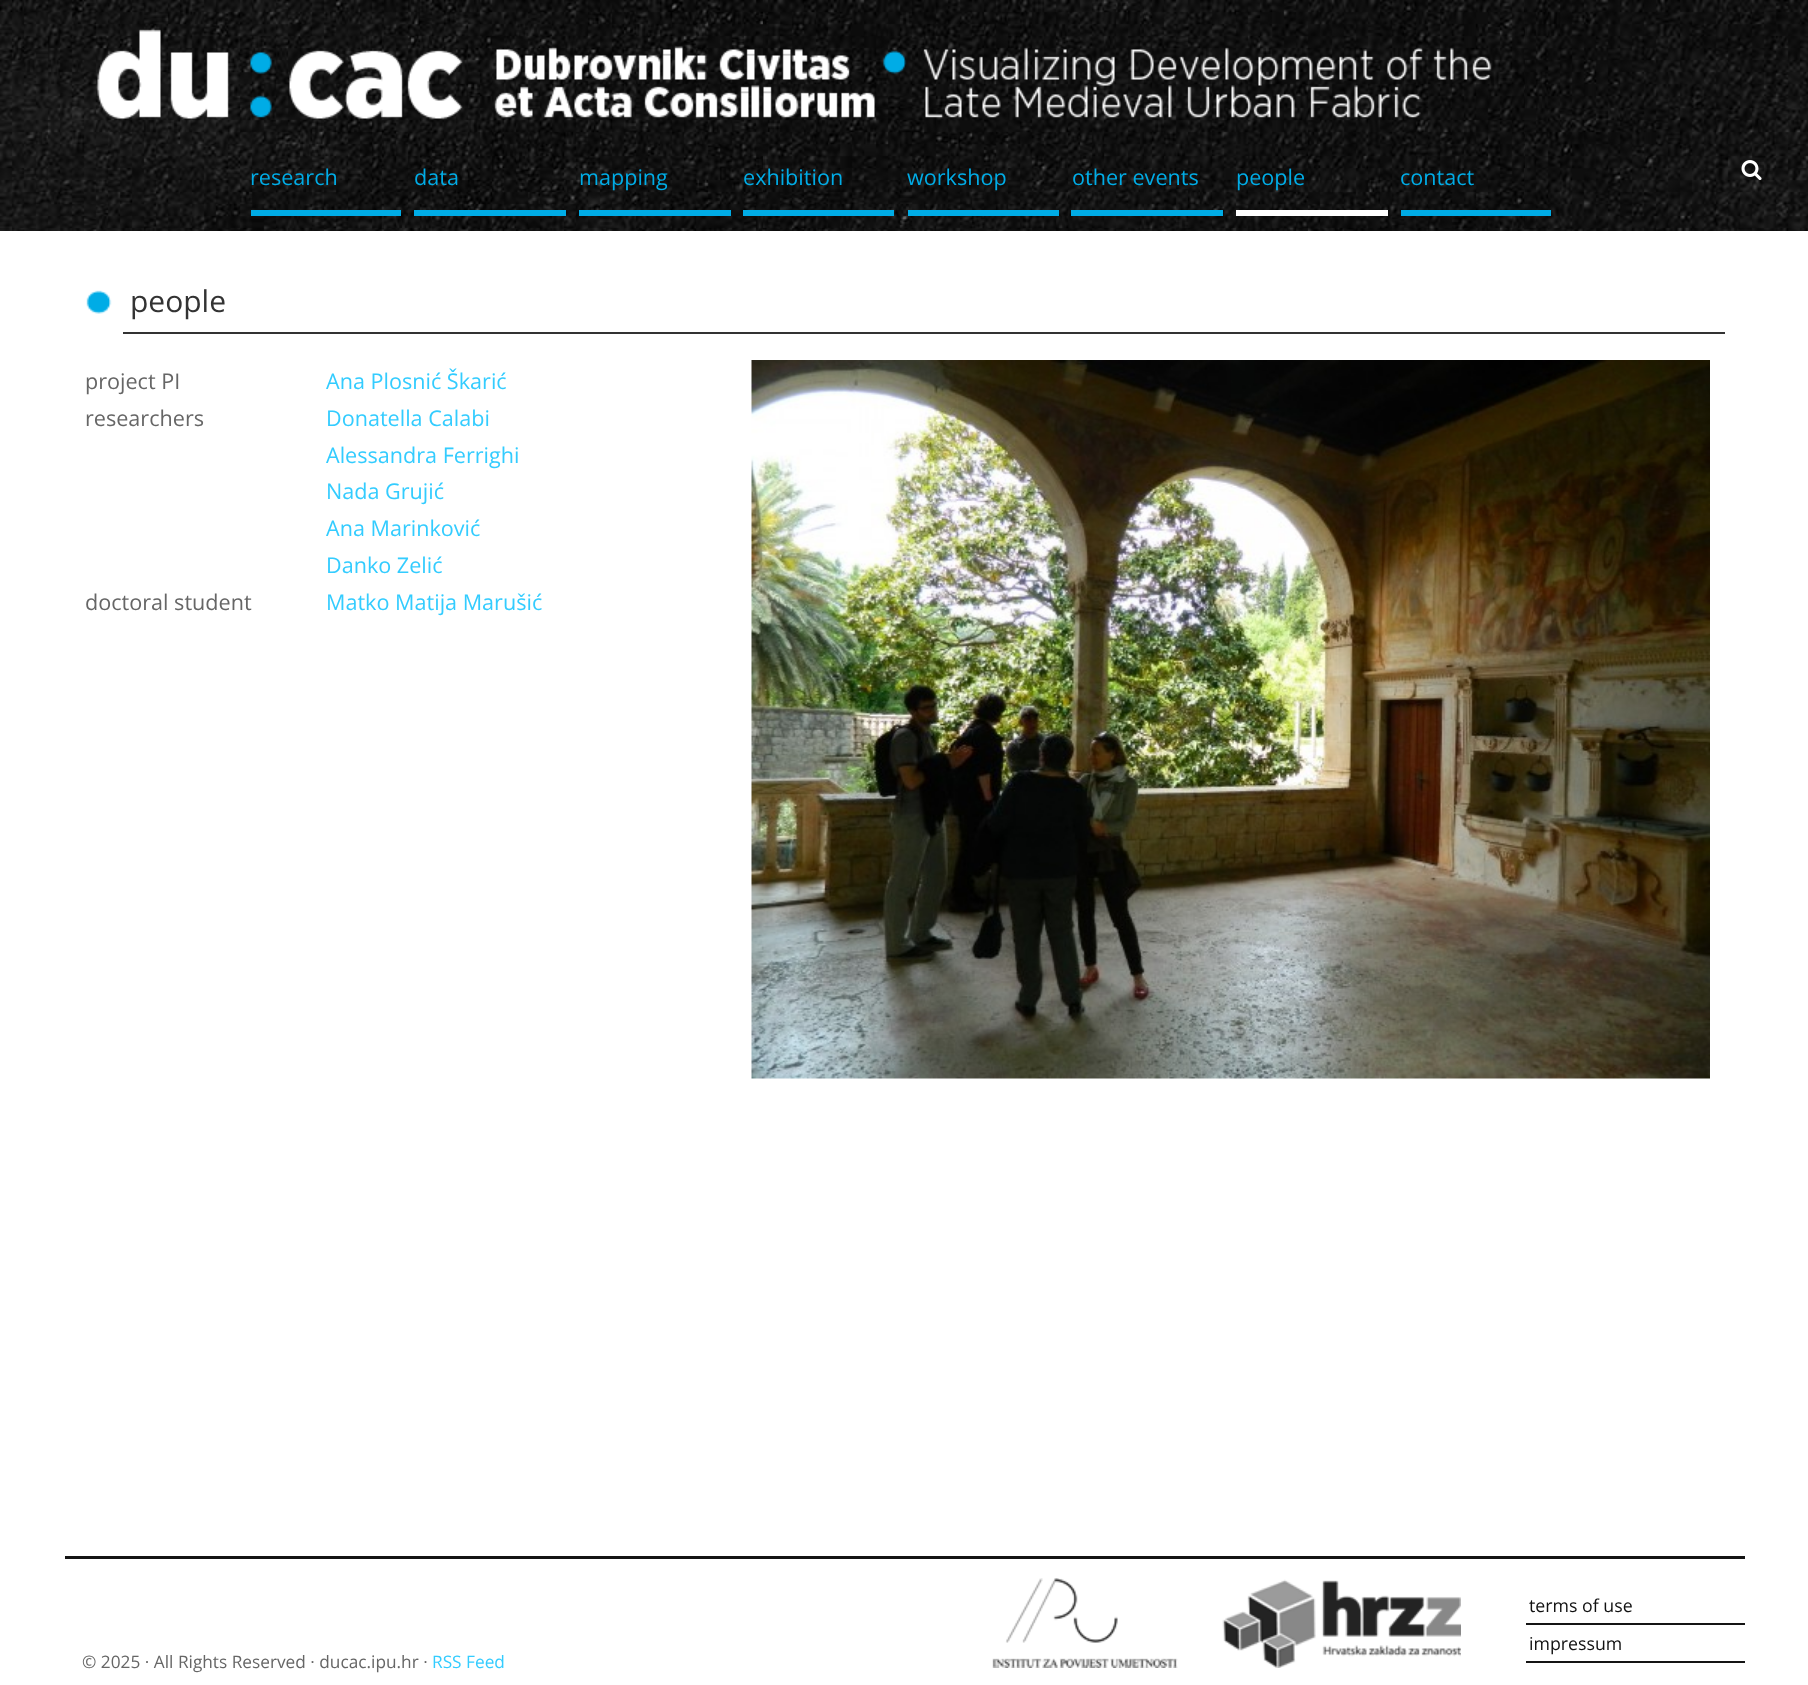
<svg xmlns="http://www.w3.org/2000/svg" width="1808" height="1685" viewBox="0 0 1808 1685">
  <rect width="100%" height="100%" fill="#fff"/>
  <image x="0" y="0" width="1808" height="231" href="img/1.png"/>
  <image x="97" y="29" width="1395" height="90" href="img/2.png"/>
  <path d="M251 210h150v6H251z" fill="#00ace6"/>
  <path d="M414 210h152v6H414z" fill="#00ace6"/>
  <path d="M579 210h152v6H579z" fill="#00ace6"/>
  <path d="M743 210h151v6H743z" fill="#00ace6"/>
  <path d="M908 210h151v6H908z" fill="#00ace6"/>
  <path d="M1071 210h152v6H1071z" fill="#00ace6"/>
  <path d="M1236 210h152v6H1236z" fill="#fff"/>
  <path d="M1401 210h150v6H1401z" fill="#00ace6"/>
  <image x="1741" y="160" width="21" height="20" href="img/3.png"/>
  <image x="86" y="290" width="26" height="24" href="img/4.png"/>
  <path d="M123 332h1602v2H123z" fill="#333"/>
  <image x="751" y="360" width="959" height="719" href="img/5.png"/>
  <path d="M65 1556h1680v3H65z" fill="#141414"/>
  <image x="992" y="1578" width="186" height="90" href="img/6.png"/>
  <image x="1222" y="1579" width="239" height="89" href="img/7.png"/>
  <path d="M1526 1623h219v2H1526z" fill="#141414"/>
  <path d="M1526 1661h219v2H1526z" fill="#141414"/>
  <g font-family="Open Sans" font-size="21.6" fill="#00ace6">
    <text x="250" y="185">research</text>
    <text x="414" y="185">data</text>
    <text x="579" y="185">mapping</text>
    <text x="743" y="185">exhibition</text>
    <text x="907" y="185">workshop</text>
    <text x="1072" y="185">other events</text>
    <text x="1236" y="185">people</text>
    <text x="1400" y="185">contact</text>
  </g>
  <text x="130" y="312" font-family="Open Sans" font-size="30" fill="#333">people</text>
  <text x="85" y="389" font-family="Open Sans" font-size="21.6" fill="#666">project PI</text>
  <text x="326" y="389" font-family="Open Sans" font-size="21.6" fill="#3cf">Ana Plosnić Škarić</text>
  <text x="85" y="426" font-family="Open Sans" font-size="21.6" fill="#666">researchers</text>
  <g font-family="Open Sans" font-size="21.6" fill="#3cf">
    <text x="326" y="426">Donatella Calabi</text>
    <text x="326" y="463">Alessandra Ferrighi</text>
    <text x="326" y="499">Nada Grujić</text>
    <text x="326" y="536">Ana Marinković</text>
    <text x="326" y="573">Danko Zelić</text>
  </g>
  <text x="85" y="610" font-family="Open Sans" font-size="21.6" fill="#666">doctoral student</text>
  <text x="326" y="610" font-family="Open Sans" font-size="21.6" fill="#3cf">Matko Matija Marušić</text>
  <g font-family="Open Sans" font-size="17.75" fill="#111">
    <text x="1529" y="1612">terms of use</text>
    <text x="1529" y="1650">impressum</text>
  </g>
  <text x="82" y="1668" font-family="Open Sans" font-size="17.25" fill="#666">© 2025 · All Rights Reserved · ducac.ipu.hr ·</text>
  <text x="432" y="1668" font-family="Open Sans" font-size="17.25" fill="#3cf">RSS Feed</text>
</svg>
